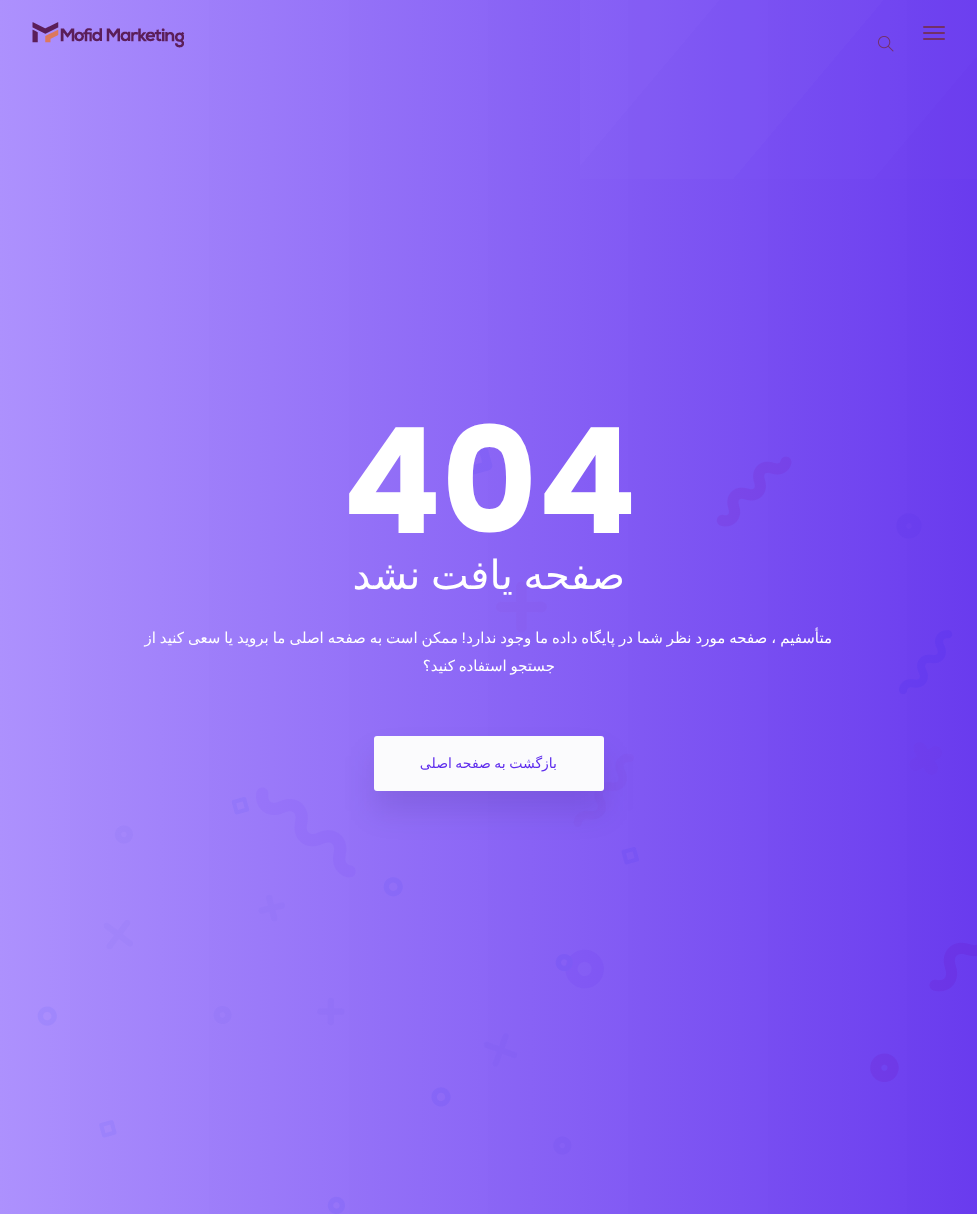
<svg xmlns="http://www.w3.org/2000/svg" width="977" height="1214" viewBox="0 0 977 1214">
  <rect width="100%" height="100%" fill="#fff"/>
  <image x="0" y="0" width="977" height="1214" href="img/3.png"/>
  <image x="580" y="0" width="397" height="179" href="img/4.png"/>
  <rect x="923" y="26" width="22" height="2" rx="1" fill="#723067"/>
  <rect x="923" y="32" width="22" height="2" rx="1" fill="#723067"/>
  <rect x="923" y="38" width="22" height="2" rx="1" fill="#723067"/>
  <image x="32" y="22" width="153" height="26" href="img/1.png"/>
  <image x="878" y="36" width="16" height="16" href="img/2.png"/>
  <rect x="374" y="756" width="230" height="55" rx="3" fill="#0f00391a" filter="blur(15px)"/>
  <rect x="374" y="736" width="230" height="55" rx="3" fill="#fbfbfd"/>
  <text x="342" y="533" font-family="Poppins" font-size="147" font-weight="bold" fill="#fff">404</text>
  <text x="625" y="589" word-spacing="-2" font-family="DejaVu Sans" font-size="40" direction="rtl" fill="#fff">صفحه یافت نشد</text>
  <text x="832" y="643" word-spacing="-0.75" font-family="DejaVu Sans" font-size="15" direction="rtl" fill="#fff">متأسفیم ، صفحه مورد نظر شما در پایگاه داده ما وجود ندارد</text>
  <text x="466" y="643" font-family="Poppins" font-size="15" direction="rtl" fill="#fff">!</text>
  <g font-family="DejaVu Sans" font-size="15" direction="rtl" fill="#fff">
    <text x="458" y="643" word-spacing="-0.75">ممکن است به صفحه اصلی ما بروید یا سعی کنید از</text>
    <text x="555" y="671" word-spacing="-1">جستجو استفاده کنید؟</text>
  </g>
  <text x="557" y="768" word-spacing="-1" font-family="DejaVu Sans" font-size="14" direction="rtl" fill="#5e2ced">بازگشت به صفحه اصلی</text>
</svg>
